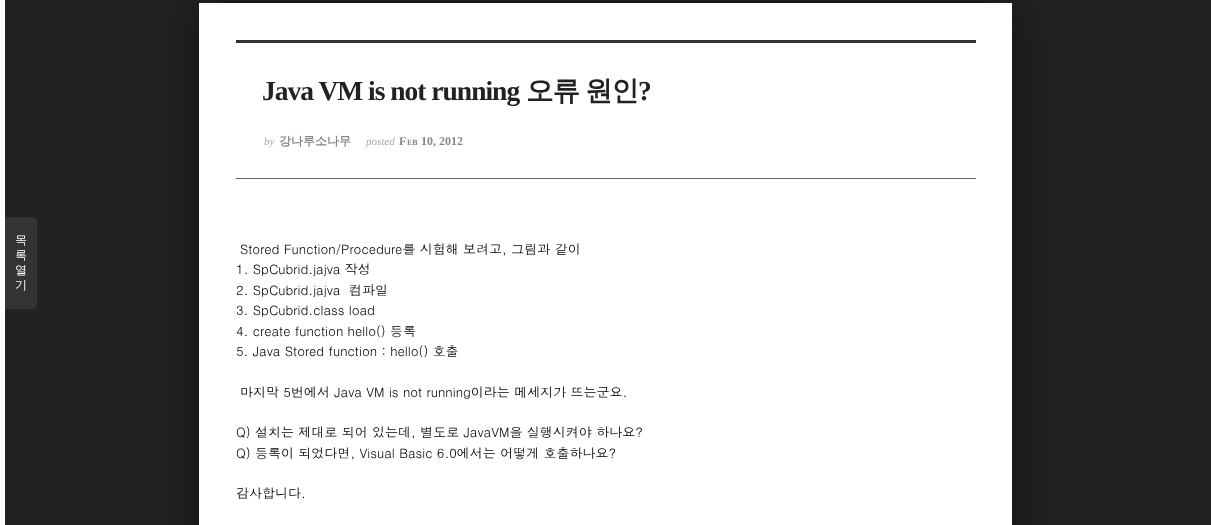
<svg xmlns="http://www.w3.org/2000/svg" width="1211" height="525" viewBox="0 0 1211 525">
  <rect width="100%" height="100%" fill="#222"/>
  <path d="M199 7h813v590H199z" fill="#00000080" filter="blur(24px)"/>
  <path d="M199 3h813v522H199z" fill="#fff"/>
  <path d="M0 0h5v525H0z" fill="#fff"/>
  <path d="M5 217H33C35 217 37 219 37 221V305C37 307 35 309 33 309H5Z" fill="#333"/>
  <path d="M236 40h740v3H236z" fill="#333"/>
  <path d="M236 178h740v1H236z" fill="#666"/>
  <g font-family="WenQuanYi Zen Hei" font-size="12" font-weight="500" fill="#fff">
    <text x="15" y="244">목</text>
    <text x="15" y="259">록</text>
    <text x="15" y="274">열</text>
    <text x="15" y="289">기</text>
  </g>
  <text x="262" y="100" font-family="Liberation Serif" font-size="27.5" font-weight="bold" letter-spacing="-1" fill="#222">Java VM is not running</text>
  <g font-family="WenQuanYi Zen Hei" font-size="27.5" font-weight="bold" letter-spacing="-1" fill="#222">
    <text x="526" y="100">오류</text>
    <text x="585" y="100">원인</text>
  </g>
  <text x="638" y="100" font-family="Liberation Serif" font-size="27.5" font-weight="bold" letter-spacing="-1" fill="#222">?</text>
  <text x="264" y="145" font-family="Liberation Serif" font-size="11" font-style="italic" fill="#aaa">by</text>
  <text x="279" y="145" font-family="WenQuanYi Zen Hei" font-size="12" font-weight="bold" fill="#888">강나루소나무</text>
  <text x="366" y="145" font-family="Liberation Serif" font-size="11" font-style="italic" fill="#aaa">posted</text>
  <text x="399" y="145" font-family="Liberation Serif" font-size="12" font-weight="bold" fill="#888">F</text>
  <text x="407" y="145" font-family="Liberation Serif" font-size="8" font-weight="bold" fill="#888">EB</text>
  <text x="421" y="145" font-family="Liberation Serif" font-size="12" font-weight="bold" fill="#888">10, 2012</text>
  <g font-family="Dotum" font-size="13" fill="#000">
    <text x="240" y="254">Stored Function/Procedure를 시험해 보려고, 그림과 같이</text>
    <text x="236" y="274">1. SpCubrid.jajva 작성</text>
    <text x="236" y="295" xml:space="preserve">2. SpCubrid.jajva  컴파일</text>
    <text x="236" y="315">3. SpCubrid.class load</text>
    <text x="236" y="336">4. create function hello() 등록</text>
    <text x="236" y="356">5. Java Stored function : hello() 호출</text>
    <text x="240" y="397">마지막 5번에서 Java VM is not running이라는 메세지가 뜨는군요.</text>
    <text x="236" y="437">Q) 설치는 제대로 되어 있는데, 별도로 JavaVM을 실행시켜야 하나요?</text>
    <text x="236" y="458">Q) 등록이 되었다면, Visual Basic 6.0에서는 어떻게 호출하나요?</text>
    <text x="236" y="498">감사합니다.</text>
  </g>
</svg>
